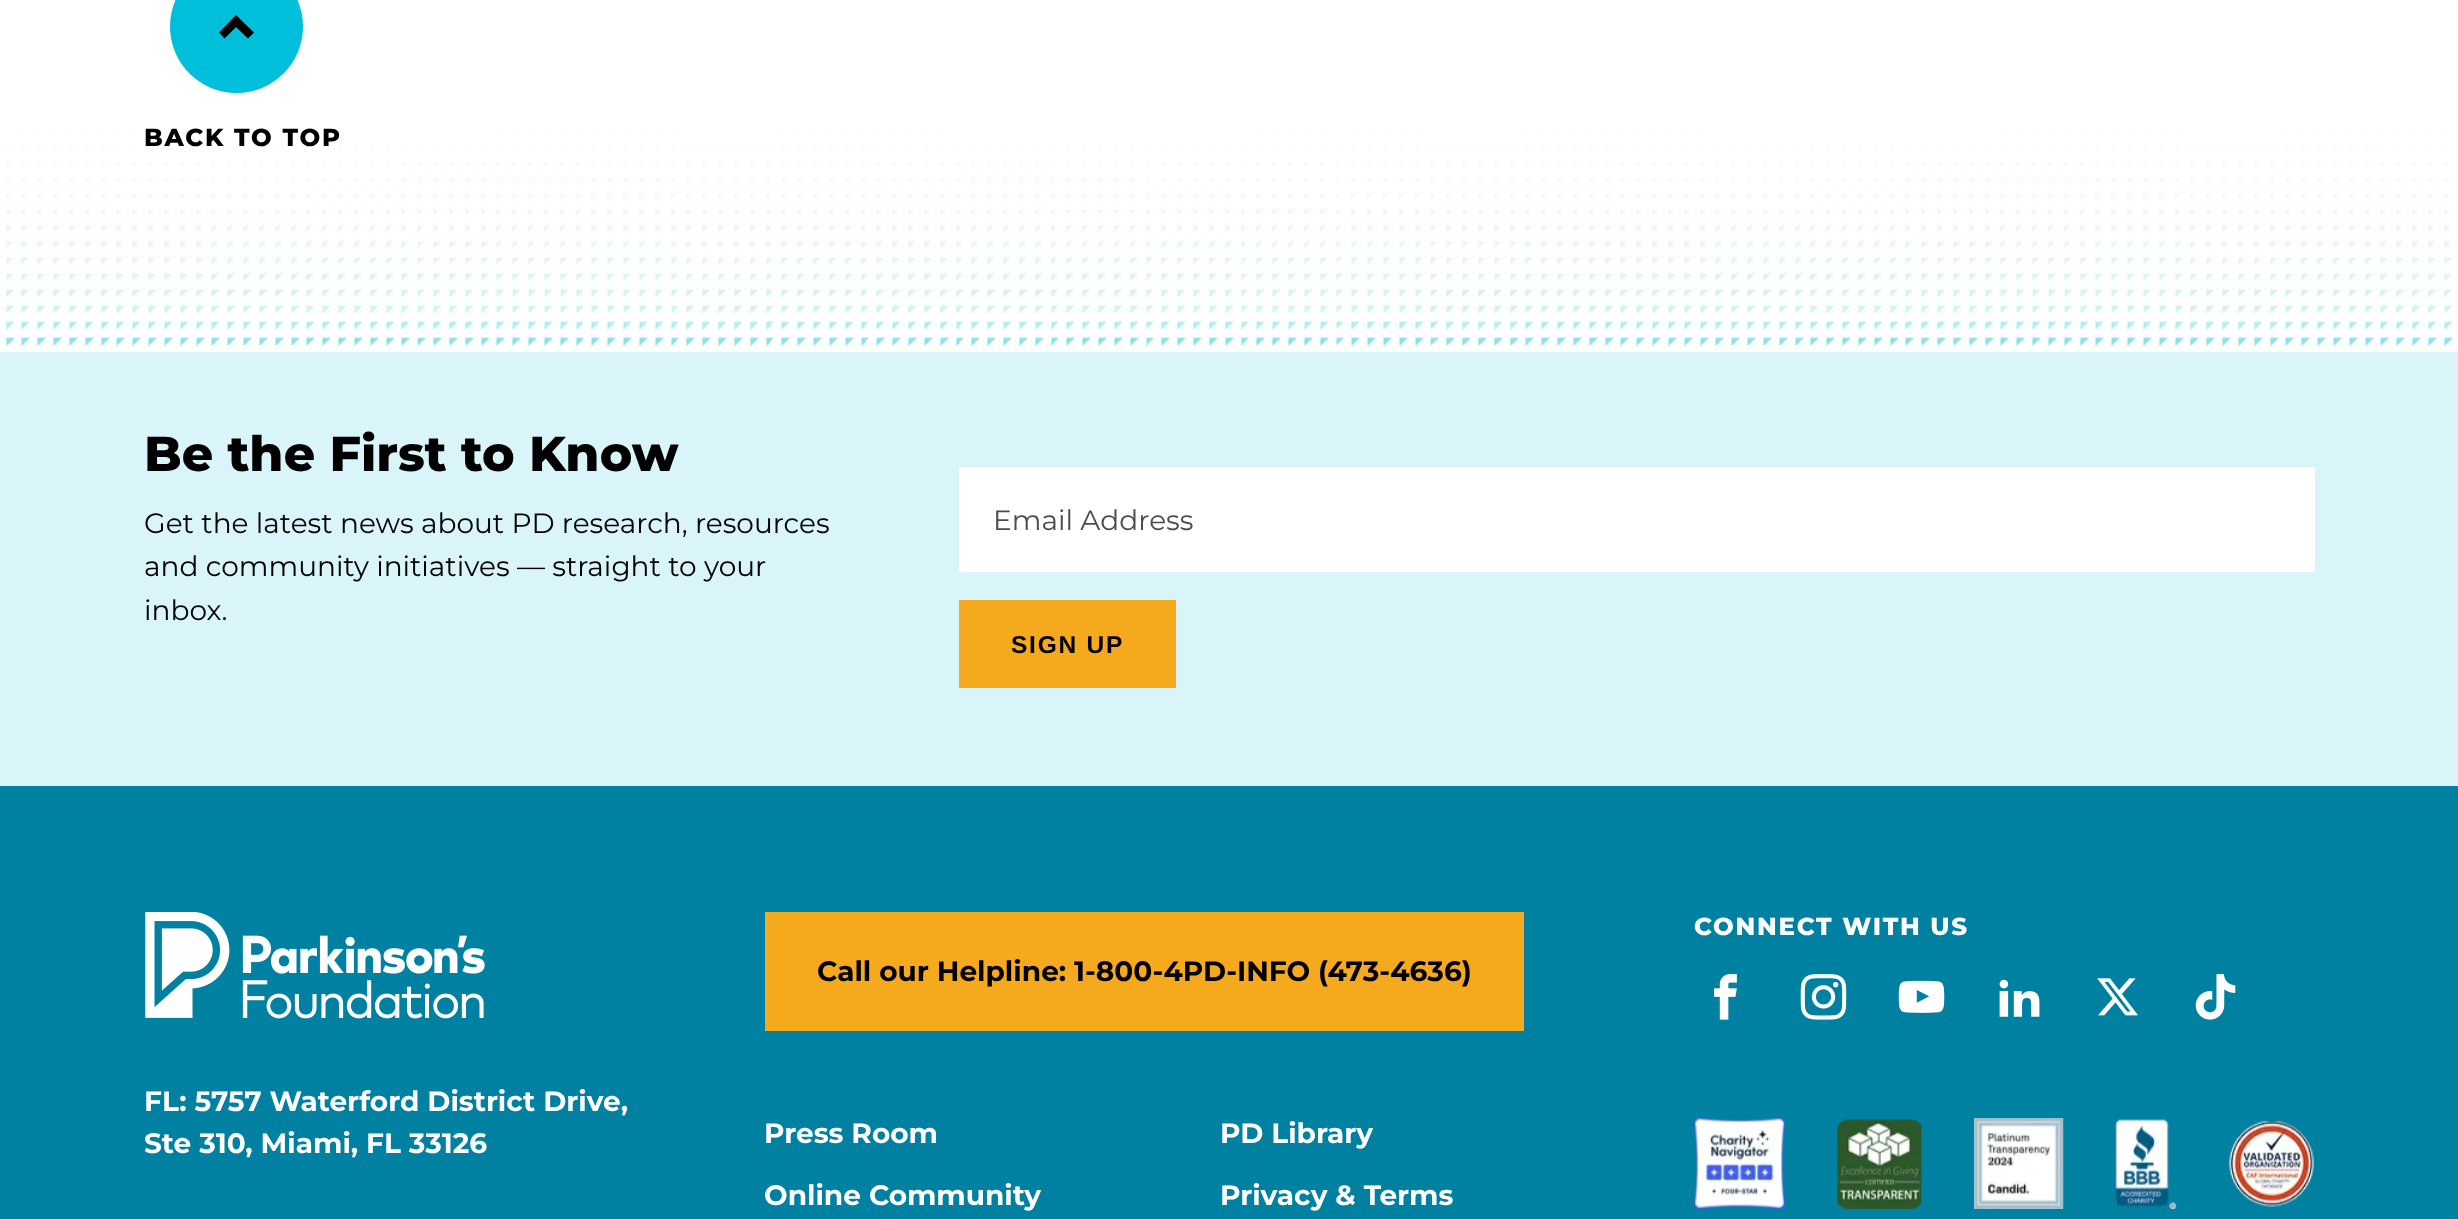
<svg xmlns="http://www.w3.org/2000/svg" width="2458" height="1219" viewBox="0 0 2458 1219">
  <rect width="100%" height="100%" fill="#fff"/>
  <circle cx="236.5" cy="26.5" r="66.5" fill="#00bfda"/>
  <path d="M236 27L224.5 38.5L219 32.5L236 15L254 32.5L248 38.5Z" fill="#000"/>
  <path d="M0 352h2458v434H0z" fill="#d9f5f9"/>
  <image x="5" y="130" width="2448" height="217" href="img/1.png"/>
  <path d="M959 467h1356v105H959z" fill="#fff"/>
  <path d="M959 600h217v88H959z" fill="#f5a91d"/>
  <path d="M0 786h2458v433H0z" fill="#0081a1"/>
  <image x="1714" y="974" width="23" height="46" href="img/2.png"/>
  <image x="1800" y="974" width="47" height="46" href="img/3.png"/>
  <image x="1898" y="980" width="47" height="33" href="img/4.png"/>
  <image x="1999" y="979" width="41" height="38" href="img/5.png"/>
  <image x="2097" y="978" width="41" height="38" href="img/6.png"/>
  <image x="2195" y="974" width="41" height="46" href="img/7.png"/>
  <path d="M765 912h759v119H765z" fill="#f5a91d"/>
  <image x="145" y="912" width="340" height="107" href="img/8.png"/>
  <image x="1694" y="1118" width="91" height="91" href="img/9.png"/>
  <image x="1837" y="1118" width="85" height="91" href="img/10.png"/>
  <image x="1974" y="1118" width="90" height="91" href="img/11.png"/>
  <image x="2115" y="1118" width="62" height="91" href="img/12.png"/>
  <image x="2229" y="1120" width="85" height="87" href="img/13.png"/>
  <text x="144" y="146" font-family="'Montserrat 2'" font-size="24.5" font-weight="100" letter-spacing="1.75" fill="#000">BACK TO TOP</text>
  <text x="144" y="471" font-family="'Montserrat 2'" font-size="49" font-weight="100" fill="#000">Be the First to Know</text>
  <g font-family="'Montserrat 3'" font-size="28" font-weight="100" fill="#000">
    <text x="144" y="533">Get the latest news about PD research, resources</text>
    <text x="144" y="576">and community initiatives — straight to your</text>
    <text x="144" y="620">inbox.</text>
  </g>
  <text x="993" y="530" font-family="'Montserrat 3'" font-size="28" font-weight="100" fill="#4a4c4e">Email Address</text>
  <text x="1011" y="653" font-family="Liberation Sans" font-size="24.5" font-weight="bold" letter-spacing="1.75" fill="#000">SIGN UP</text>
  <text x="1694" y="935" font-family="'Montserrat 2'" font-size="24.5" font-weight="100" letter-spacing="1.75" fill="#fff">CONNECT WITH US</text>
  <text x="817" y="981" font-family="Montserrat" font-size="28" font-weight="100" fill="#000">Call our Helpline: 1-800-4PD-INFO (473-4636)</text>
  <g font-family="Montserrat" font-size="28" font-weight="100" fill="#fff">
    <text x="144" y="1111">FL: 5757 Waterford District Drive,</text>
    <text x="144" y="1153">Ste 310, Miami, FL 33126</text>
    <text x="764" y="1143">Press Room</text>
    <text x="1220" y="1143">PD Library</text>
    <text x="764" y="1205">Online Community</text>
    <text x="1220" y="1205">Privacy &amp; Terms</text>
  </g>
</svg>
